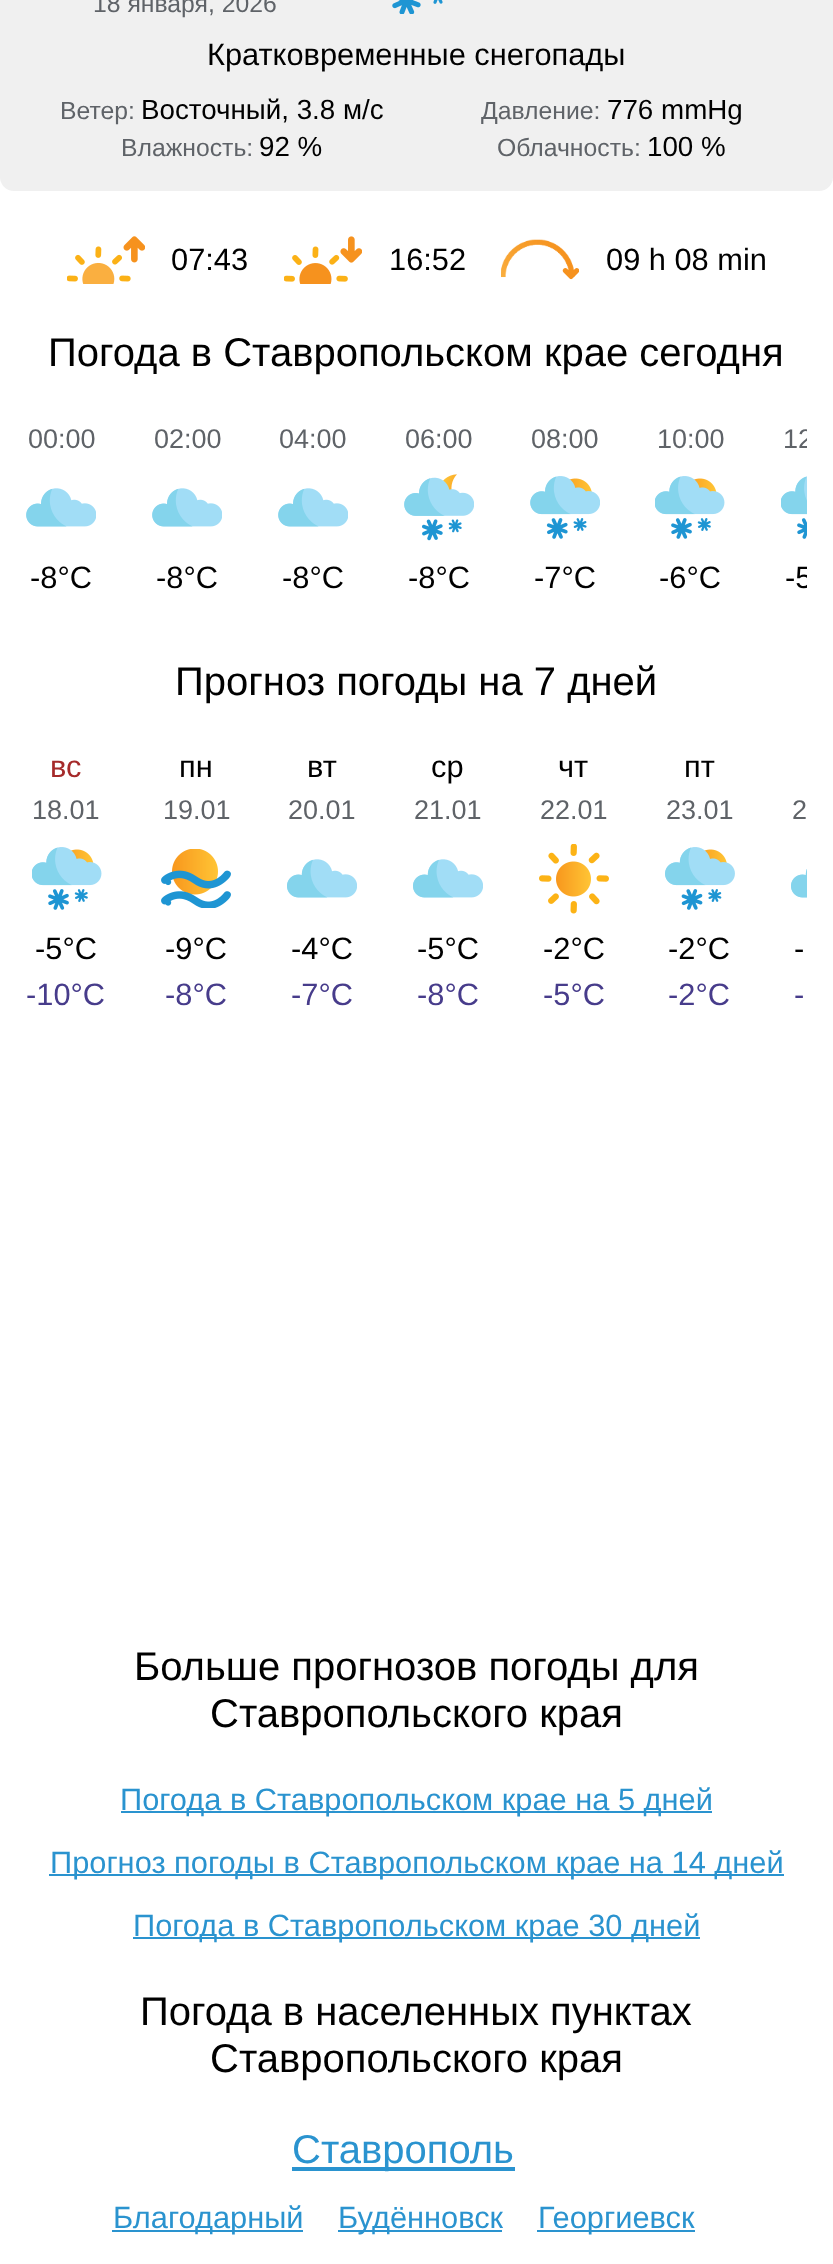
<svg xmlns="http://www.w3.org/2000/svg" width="833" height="2264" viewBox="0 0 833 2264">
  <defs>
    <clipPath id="clip1"><path d="M26 420h781v194H26z"/></clipPath>
  </defs>
  <rect width="100%" height="100%" fill="#fff"/>
  <rect y="-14" width="833" height="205" rx="14" fill="#f0f0f0"/>
  <image x="392" y="0" width="51" height="14" href="img/1.png"/>
  <image x="67" y="236" width="78" height="48" href="img/2.png"/>
  <image x="284" y="236" width="78" height="48" href="img/3.png"/>
  <image x="501" y="239" width="78" height="41" href="img/4.png"/>
  <image x="26" y="488" width="70" height="39" href="img/5.png"/>
  <image x="152" y="488" width="70" height="39" href="img/5.png"/>
  <image x="278" y="488" width="70" height="39" href="img/5.png"/>
  <image x="404" y="474" width="70" height="67" href="img/6.png"/>
  <image x="530" y="476" width="70" height="63" href="img/7.png"/>
  <image x="655" y="476" width="70" height="63" href="img/8.png"/>
  <image x="781" y="476" width="26" height="63" href="img/9.png"/>
  <image x="32" y="847" width="70" height="63" href="img/8.png"/>
  <image x="161" y="849" width="70" height="59" href="img/10.png"/>
  <image x="287" y="859" width="70" height="39" href="img/11.png"/>
  <image x="413" y="859" width="70" height="39" href="img/11.png"/>
  <image x="539" y="844" width="70" height="70" href="img/12.png"/>
  <image x="665" y="847" width="70" height="63" href="img/13.png"/>
  <image x="791" y="869" width="16" height="29" href="img/14.png"/>
  <path d="M121 1811h591v2H121z" fill="#2a93cf"/>
  <path d="M49 1874h735v2H49z" fill="#2a93cf"/>
  <path d="M133 1937h567v2H133z" fill="#2a93cf"/>
  <path d="M292 2167h223v4H292z" fill="#2a93cf"/>
  <path d="M112 2230h191v2H112z" fill="#2a93cf"/>
  <path d="M338 2230h164v2H338z" fill="#2a93cf"/>
  <path d="M537 2230h158v2H537z" fill="#2a93cf"/>
  <text x="93" y="12" font-family="Liberation Sans" font-size="24.75" fill="#5f6368">18 января, 2026</text>
  <text x="207" y="65" font-family="Liberation Sans" font-size="30.8" fill="#000">Кратковременные снегопады</text>
  <text x="60" y="119" font-family="Liberation Sans" font-size="24.75" fill="#5f6368">Ветер:</text>
  <text x="141" y="119" font-family="Liberation Sans" font-size="27.75" fill="#000">Восточный, 3.8 м/с</text>
  <text x="481" y="119" font-family="Liberation Sans" font-size="24.75" fill="#5f6368">Давление:</text>
  <text x="607" y="119" font-family="Liberation Sans" font-size="27.75" fill="#000">776 mmHg</text>
  <text x="121" y="156" font-family="Liberation Sans" font-size="24.75" fill="#5f6368">Влажность:</text>
  <text x="259" y="156" font-family="Liberation Sans" font-size="27.75" fill="#000">92 %</text>
  <text x="497" y="156" font-family="Liberation Sans" font-size="24.75" fill="#5f6368">Облачность:</text>
  <text x="647" y="156" font-family="Liberation Sans" font-size="27.75" fill="#000">100 %</text>
  <g font-family="Liberation Sans" font-size="30.8" fill="#000">
    <text x="171" y="270">07:43</text>
    <text x="389" y="270">16:52</text>
    <text x="606" y="270">09 h 08 min</text>
  </g>
  <text x="48" y="366" font-family="Liberation Sans" font-size="40" fill="#000">Погода в Ставропольском крае сегодня</text>
  <text x="28" y="448" font-family="Liberation Sans" font-size="27" fill="#5f6368">00:00</text>
  <text x="30" y="588" font-family="Liberation Sans" font-size="30.8" fill="#000">-8°C</text>
  <text x="154" y="448" font-family="Liberation Sans" font-size="27" fill="#5f6368">02:00</text>
  <text x="156" y="588" font-family="Liberation Sans" font-size="30.8" fill="#000">-8°C</text>
  <text x="279" y="448" font-family="Liberation Sans" font-size="27" fill="#5f6368">04:00</text>
  <text x="282" y="588" font-family="Liberation Sans" font-size="30.8" fill="#000">-8°C</text>
  <text x="405" y="448" font-family="Liberation Sans" font-size="27" fill="#5f6368">06:00</text>
  <text x="408" y="588" font-family="Liberation Sans" font-size="30.8" fill="#000">-8°C</text>
  <text x="531" y="448" font-family="Liberation Sans" font-size="27" fill="#5f6368">08:00</text>
  <text x="534" y="588" font-family="Liberation Sans" font-size="30.8" fill="#000">-7°C</text>
  <text x="657" y="448" font-family="Liberation Sans" font-size="27" fill="#5f6368">10:00</text>
  <text x="659" y="588" font-family="Liberation Sans" font-size="30.8" fill="#000">-6°C</text>
  <g clip-path="url(#clip1)">
    <text x="783" y="448" font-family="Liberation Sans" font-size="27" fill="#5f6368">12</text>
    <text x="785" y="588" font-family="Liberation Sans" font-size="30.8" fill="#000">-5</text>
  </g>
  <text x="175" y="695" font-family="Liberation Sans" font-size="40" fill="#000">Прогноз погоды на 7 дней</text>
  <text x="50" y="777" font-family="Liberation Sans" font-size="30.8" fill="#a52a2a">вс</text>
  <text x="32" y="819" font-family="Liberation Sans" font-size="27" fill="#5f6368">18.01</text>
  <text x="35" y="959" font-family="Liberation Sans" font-size="30.8" fill="#000">-5°C</text>
  <text x="26" y="1005" font-family="Liberation Sans" font-size="30.8" fill="#473c8b">-10°C</text>
  <text x="179" y="777" font-family="Liberation Sans" font-size="30.8" fill="#000">пн</text>
  <text x="163" y="819" font-family="Liberation Sans" font-size="27" fill="#5f6368">19.01</text>
  <text x="165" y="959" font-family="Liberation Sans" font-size="30.8" fill="#000">-9°C</text>
  <text x="165" y="1005" font-family="Liberation Sans" font-size="30.8" fill="#473c8b">-8°C</text>
  <text x="307" y="777" font-family="Liberation Sans" font-size="30.8" fill="#000">вт</text>
  <text x="288" y="819" font-family="Liberation Sans" font-size="27" fill="#5f6368">20.01</text>
  <text x="291" y="959" font-family="Liberation Sans" font-size="30.8" fill="#000">-4°C</text>
  <text x="291" y="1005" font-family="Liberation Sans" font-size="30.8" fill="#473c8b">-7°C</text>
  <text x="431" y="777" font-family="Liberation Sans" font-size="30.8" fill="#000">ср</text>
  <text x="414" y="819" font-family="Liberation Sans" font-size="27" fill="#5f6368">21.01</text>
  <text x="417" y="959" font-family="Liberation Sans" font-size="30.8" fill="#000">-5°C</text>
  <text x="417" y="1005" font-family="Liberation Sans" font-size="30.8" fill="#473c8b">-8°C</text>
  <text x="558" y="777" font-family="Liberation Sans" font-size="30.8" fill="#000">чт</text>
  <text x="540" y="819" font-family="Liberation Sans" font-size="27" fill="#5f6368">22.01</text>
  <text x="543" y="959" font-family="Liberation Sans" font-size="30.8" fill="#000">-2°C</text>
  <text x="543" y="1005" font-family="Liberation Sans" font-size="30.8" fill="#473c8b">-5°C</text>
  <text x="684" y="777" font-family="Liberation Sans" font-size="30.8" fill="#000">пт</text>
  <text x="666" y="819" font-family="Liberation Sans" font-size="27" fill="#5f6368">23.01</text>
  <text x="668" y="959" font-family="Liberation Sans" font-size="30.8" fill="#000">-2°C</text>
  <text x="668" y="1005" font-family="Liberation Sans" font-size="30.8" fill="#473c8b">-2°C</text>
  <text x="792" y="819" font-family="Liberation Sans" font-size="27" fill="#5f6368">2</text>
  <text x="794" y="959" font-family="Liberation Sans" font-size="30.8" fill="#000">-</text>
  <text x="794" y="1005" font-family="Liberation Sans" font-size="30.8" fill="#473c8b">-</text>
  <g font-family="Liberation Sans" font-size="40" fill="#000">
    <text x="134" y="1680">Больше прогнозов погоды для</text>
    <text x="210" y="1727">Ставропольского края</text>
  </g>
  <g font-family="Liberation Sans" font-size="30.8" fill="#2a93cf">
    <text x="120" y="1810">Погода в Ставропольском крае на 5 дней</text>
    <text x="50" y="1873">Прогноз погоды в Ставропольском крае на 14 дней</text>
    <text x="133" y="1936">Погода в Ставропольском крае 30 дней</text>
  </g>
  <g font-family="Liberation Sans" font-size="40" fill="#000">
    <text x="140" y="2025">Погода в населенных пунктах</text>
    <text x="210" y="2072">Ставропольского края</text>
  </g>
  <text x="292" y="2163" font-family="Liberation Sans" font-size="40" fill="#2a93cf">Ставрополь</text>
  <g font-family="Liberation Sans" font-size="30.8" fill="#2a93cf">
    <text x="113" y="2228">Благодарный</text>
    <text x="338" y="2228">Будённовск</text>
    <text x="538" y="2228">Георгиевск</text>
  </g>
</svg>
